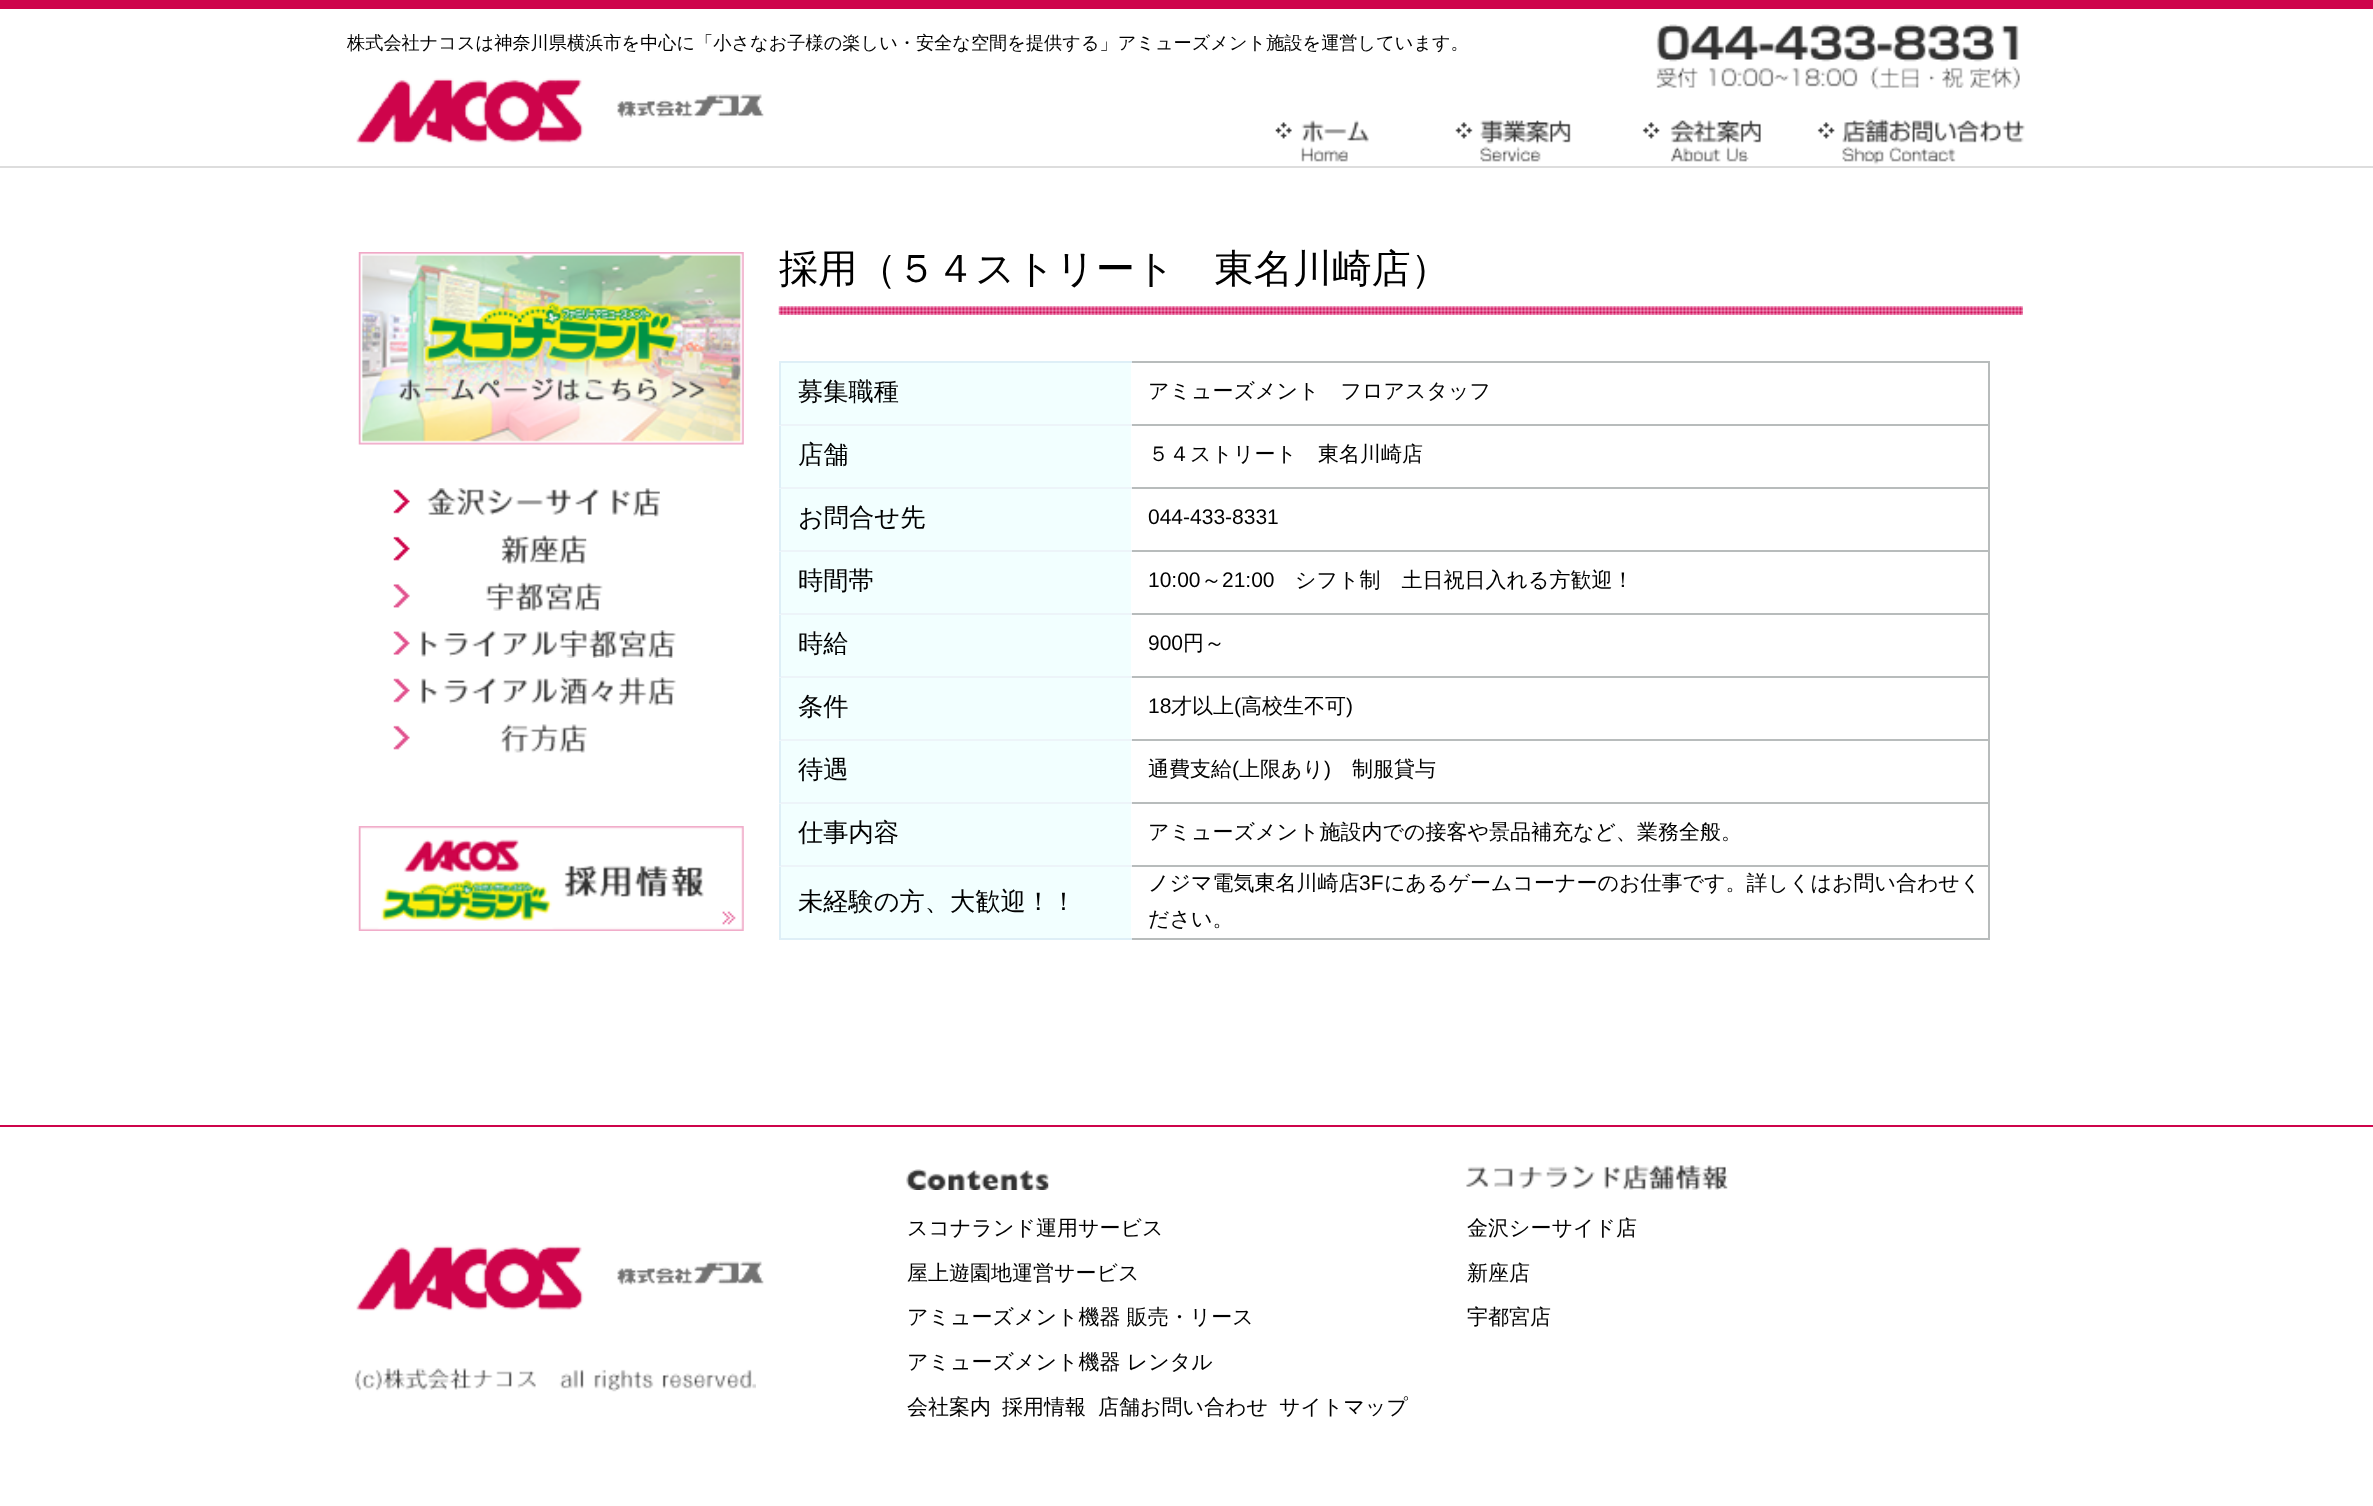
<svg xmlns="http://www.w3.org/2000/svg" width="2373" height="1506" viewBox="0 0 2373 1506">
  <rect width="100%" height="100%" fill="#fff"/>
  <path d="M0 0h2373v9H0z" fill="#ce044b"/>
  <path d="M0 166h2373v2H0z" fill="#ddd"/>
  <image x="1656" y="24" width="364" height="66" href="img/1.png"/>
  <image x="356" y="78" width="408" height="66" href="img/2.png"/>
  <image x="1275" y="120" width="94" height="42" href="img/3.png"/>
  <image x="1455" y="120" width="116" height="42" href="img/4.png"/>
  <image x="1642" y="120" width="119" height="42" href="img/5.png"/>
  <image x="1817" y="119" width="208" height="46" href="img/6.png"/>
  <image x="358" y="252" width="386" height="193" href="img/7.png"/>
  <image x="393" y="488" width="267" height="29" href="img/8.png"/>
  <image x="393" y="535" width="194" height="29" href="img/9.png"/>
  <image x="393" y="582" width="210" height="29" href="img/10.png"/>
  <image x="393" y="630" width="283" height="28" href="img/11.png"/>
  <image x="393" y="677" width="283" height="29" href="img/12.png"/>
  <image x="393" y="724" width="194" height="29" href="img/13.png"/>
  <image x="358" y="826" width="386" height="105" href="img/14.png"/>
  <image x="778" y="306" width="1245" height="9" href="img/15.png"/>
  <path d="M781 363h350v61H781z" fill="#f2ffff"/>
  <path d="M1131 361h859v2H1131z" fill="#b8bcbc"/>
  <path d="M779 361h353v2H779z" fill="#deeff7"/>
  <path d="M1131 865h859v2H1131z" fill="#b8bcbc"/>
  <path d="M1988 865h2v75H1988z" fill="#b8bcbc"/>
  <path d="M1131 938h859v2H1131z" fill="#b8bcbc"/>
  <path d="M779 938h353v2H779z" fill="#deeff7"/>
  <path d="M779 865h2v75H779z" fill="#deeff7"/>
  <path d="M779 865h353v2H779z" fill="#edf4f9"/>
  <path d="M779 802h2v64H779z" fill="#deeff7"/>
  <path d="M1131 802h859v2H1131z" fill="#b8bcbc"/>
  <path d="M779 802h353v2H779z" fill="#edf4f9"/>
  <path d="M779 739h2v64H779z" fill="#deeff7"/>
  <path d="M1131 739h859v2H1131z" fill="#b8bcbc"/>
  <path d="M779 739h353v2H779z" fill="#edf4f9"/>
  <path d="M779 676h2v64H779z" fill="#deeff7"/>
  <path d="M1131 676h859v2H1131z" fill="#b8bcbc"/>
  <path d="M779 676h353v2H779z" fill="#edf4f9"/>
  <path d="M779 613h2v64H779z" fill="#deeff7"/>
  <path d="M1131 613h859v2H1131z" fill="#b8bcbc"/>
  <path d="M779 613h353v2H779z" fill="#edf4f9"/>
  <path d="M779 550h2v64H779z" fill="#deeff7"/>
  <path d="M1131 550h859v2H1131z" fill="#b8bcbc"/>
  <path d="M779 550h353v2H779z" fill="#edf4f9"/>
  <path d="M779 487h2v64H779z" fill="#deeff7"/>
  <path d="M1131 487h859v2H1131z" fill="#b8bcbc"/>
  <path d="M779 487h353v2H779z" fill="#edf4f9"/>
  <path d="M779 424h2v64H779z" fill="#deeff7"/>
  <path d="M1131 424h859v2H1131z" fill="#b8bcbc"/>
  <path d="M779 424h353v2H779z" fill="#edf4f9"/>
  <path d="M779 361h2v64H779z" fill="#deeff7"/>
  <path d="M1988 802h2v64H1988z" fill="#b8bcbc"/>
  <path d="M1988 739h2v64H1988z" fill="#b8bcbc"/>
  <path d="M1988 676h2v64H1988z" fill="#b8bcbc"/>
  <path d="M1988 613h2v64H1988z" fill="#b8bcbc"/>
  <path d="M1988 550h2v64H1988z" fill="#b8bcbc"/>
  <path d="M1988 487h2v64H1988z" fill="#b8bcbc"/>
  <path d="M1988 424h2v64H1988z" fill="#b8bcbc"/>
  <path d="M1988 361h2v64H1988z" fill="#b8bcbc"/>
  <path d="M781 426h350v61H781z" fill="#f2ffff"/>
  <path d="M781 489h350v61H781z" fill="#f2ffff"/>
  <path d="M781 552h350v61H781z" fill="#f2ffff"/>
  <path d="M781 615h350v61H781z" fill="#f2ffff"/>
  <path d="M781 678h350v61H781z" fill="#f2ffff"/>
  <path d="M781 741h350v61H781z" fill="#f2ffff"/>
  <path d="M781 804h350v61H781z" fill="#f2ffff"/>
  <path d="M781 867h350v71H781z" fill="#f2ffff"/>
  <path d="M0 1125h2373v2H0z" fill="#ce044b"/>
  <image x="356" y="1245" width="408" height="66" href="img/16.png"/>
  <image x="355" y="1368" width="401" height="24" href="img/17.png"/>
  <image x="906" y="1169" width="143" height="21" href="img/18.png"/>
  <image x="1466" y="1165" width="262" height="25" href="img/19.png"/>
  <text x="347" y="49" font-family="WenQuanYi Zen Hei" font-size="18.2" font-weight="500" fill="#000">株式会社ナコスは神奈川県横浜市を中心に「小さなお子様の楽しい・安全な空間を提供する」アミューズメント施設を運営しています。</text>
  <text x="779" y="282" font-family="WenQuanYi Zen Hei" font-size="39.25" font-weight="500" fill="#000">採用（５４ストリート　東名川崎店）</text>
  <text x="798" y="400" font-family="WenQuanYi Zen Hei" font-size="25.25" font-weight="500" fill="#000">募集職種</text>
  <text x="1148" y="398" font-family="WenQuanYi Zen Hei" font-size="21" font-weight="500" fill="#000">アミューズメント　フロアスタッフ</text>
  <text x="798" y="463" font-family="WenQuanYi Zen Hei" font-size="25.25" font-weight="500" fill="#000">店舗</text>
  <text x="1148" y="461" font-family="WenQuanYi Zen Hei" font-size="21" font-weight="500" fill="#000">５４ストリート　東名川崎店</text>
  <text x="798" y="526" font-family="WenQuanYi Zen Hei" font-size="25.25" font-weight="500" fill="#000">お問合せ先</text>
  <text x="1148" y="524" font-family="Liberation Sans" font-size="21" fill="#000">044-433-8331</text>
  <text x="798" y="589" font-family="WenQuanYi Zen Hei" font-size="25.25" font-weight="500" fill="#000">時間帯</text>
  <text x="1148" y="587" font-family="Liberation Sans" font-size="21" fill="#000">10:00</text>
  <text x="1201" y="587" font-family="WenQuanYi Zen Hei" font-size="21" font-weight="500" fill="#000">～</text>
  <text x="1222" y="587" font-family="Liberation Sans" font-size="21" fill="#000">21:00</text>
  <text x="1295" y="587" font-family="WenQuanYi Zen Hei" font-size="21" font-weight="500" fill="#000">シフト制　土日祝日入れる方歓迎！</text>
  <text x="798" y="652" font-family="WenQuanYi Zen Hei" font-size="25.25" font-weight="500" fill="#000">時給</text>
  <text x="1148" y="650" font-family="Liberation Sans" font-size="21" fill="#000">900</text>
  <text x="1183" y="650" font-family="WenQuanYi Zen Hei" font-size="21" font-weight="500" fill="#000">円～</text>
  <text x="798" y="715" font-family="WenQuanYi Zen Hei" font-size="25.25" font-weight="500" fill="#000">条件</text>
  <text x="1148" y="713" font-family="Liberation Sans" font-size="21" fill="#000">18</text>
  <text x="1171" y="713" font-family="WenQuanYi Zen Hei" font-size="21" font-weight="500" fill="#000">才以上</text>
  <text x="1234" y="713" font-family="Liberation Sans" font-size="21" fill="#000">(</text>
  <text x="1241" y="713" font-family="WenQuanYi Zen Hei" font-size="21" font-weight="500" fill="#000">高校生不可</text>
  <text x="1346" y="713" font-family="Liberation Sans" font-size="21" fill="#000">)</text>
  <text x="798" y="778" font-family="WenQuanYi Zen Hei" font-size="25.25" font-weight="500" fill="#000">待遇</text>
  <text x="1148" y="776" font-family="WenQuanYi Zen Hei" font-size="21" font-weight="500" fill="#000">通費支給</text>
  <text x="1232" y="776" font-family="Liberation Sans" font-size="21" fill="#000">(</text>
  <text x="1239" y="776" font-family="WenQuanYi Zen Hei" font-size="21" font-weight="500" fill="#000">上限あり</text>
  <text x="1324" y="776" font-family="Liberation Sans" font-size="21" fill="#000">)</text>
  <text x="1352" y="776" font-family="WenQuanYi Zen Hei" font-size="21" font-weight="500" fill="#000">制服貸与</text>
  <text x="798" y="841" font-family="WenQuanYi Zen Hei" font-size="25.25" font-weight="500" fill="#000">仕事内容</text>
  <text x="1148" y="839" font-family="WenQuanYi Zen Hei" font-size="21" font-weight="500" fill="#000">アミューズメント施設内での接客や景品補充など、業務全般。</text>
  <text x="798" y="910" font-family="WenQuanYi Zen Hei" font-size="25.25" font-weight="500" fill="#000">未経験の方、大歓迎！！</text>
  <text x="1148" y="890" font-family="WenQuanYi Zen Hei" font-size="21" font-weight="500" fill="#000">ノジマ電気東名川崎店</text>
  <text x="1359" y="890" font-family="Liberation Sans" font-size="21" fill="#000">3F</text>
  <g font-family="WenQuanYi Zen Hei" font-size="21" font-weight="500" fill="#000">
    <text x="1384" y="890">にあるゲームコーナーのお仕事です。詳しくはお問い合わせく</text>
    <text x="1148" y="926">ださい。</text>
    <text x="907" y="1235">スコナランド運用サービス</text>
    <text x="907" y="1280">屋上遊園地運営サービス</text>
    <text x="907" y="1324">アミューズメント機器 販売・リース</text>
    <text x="907" y="1369">アミューズメント機器 レンタル</text>
    <text x="907" y="1414">会社案内</text>
    <text x="1002" y="1414">採用情報</text>
    <text x="1098" y="1414">店舗お問い合わせ</text>
    <text x="1279" y="1414">サイトマップ</text>
    <text x="1467" y="1235">金沢シーサイド店</text>
    <text x="1467" y="1280">新座店</text>
    <text x="1467" y="1324">宇都宮店</text>
  </g>
</svg>
